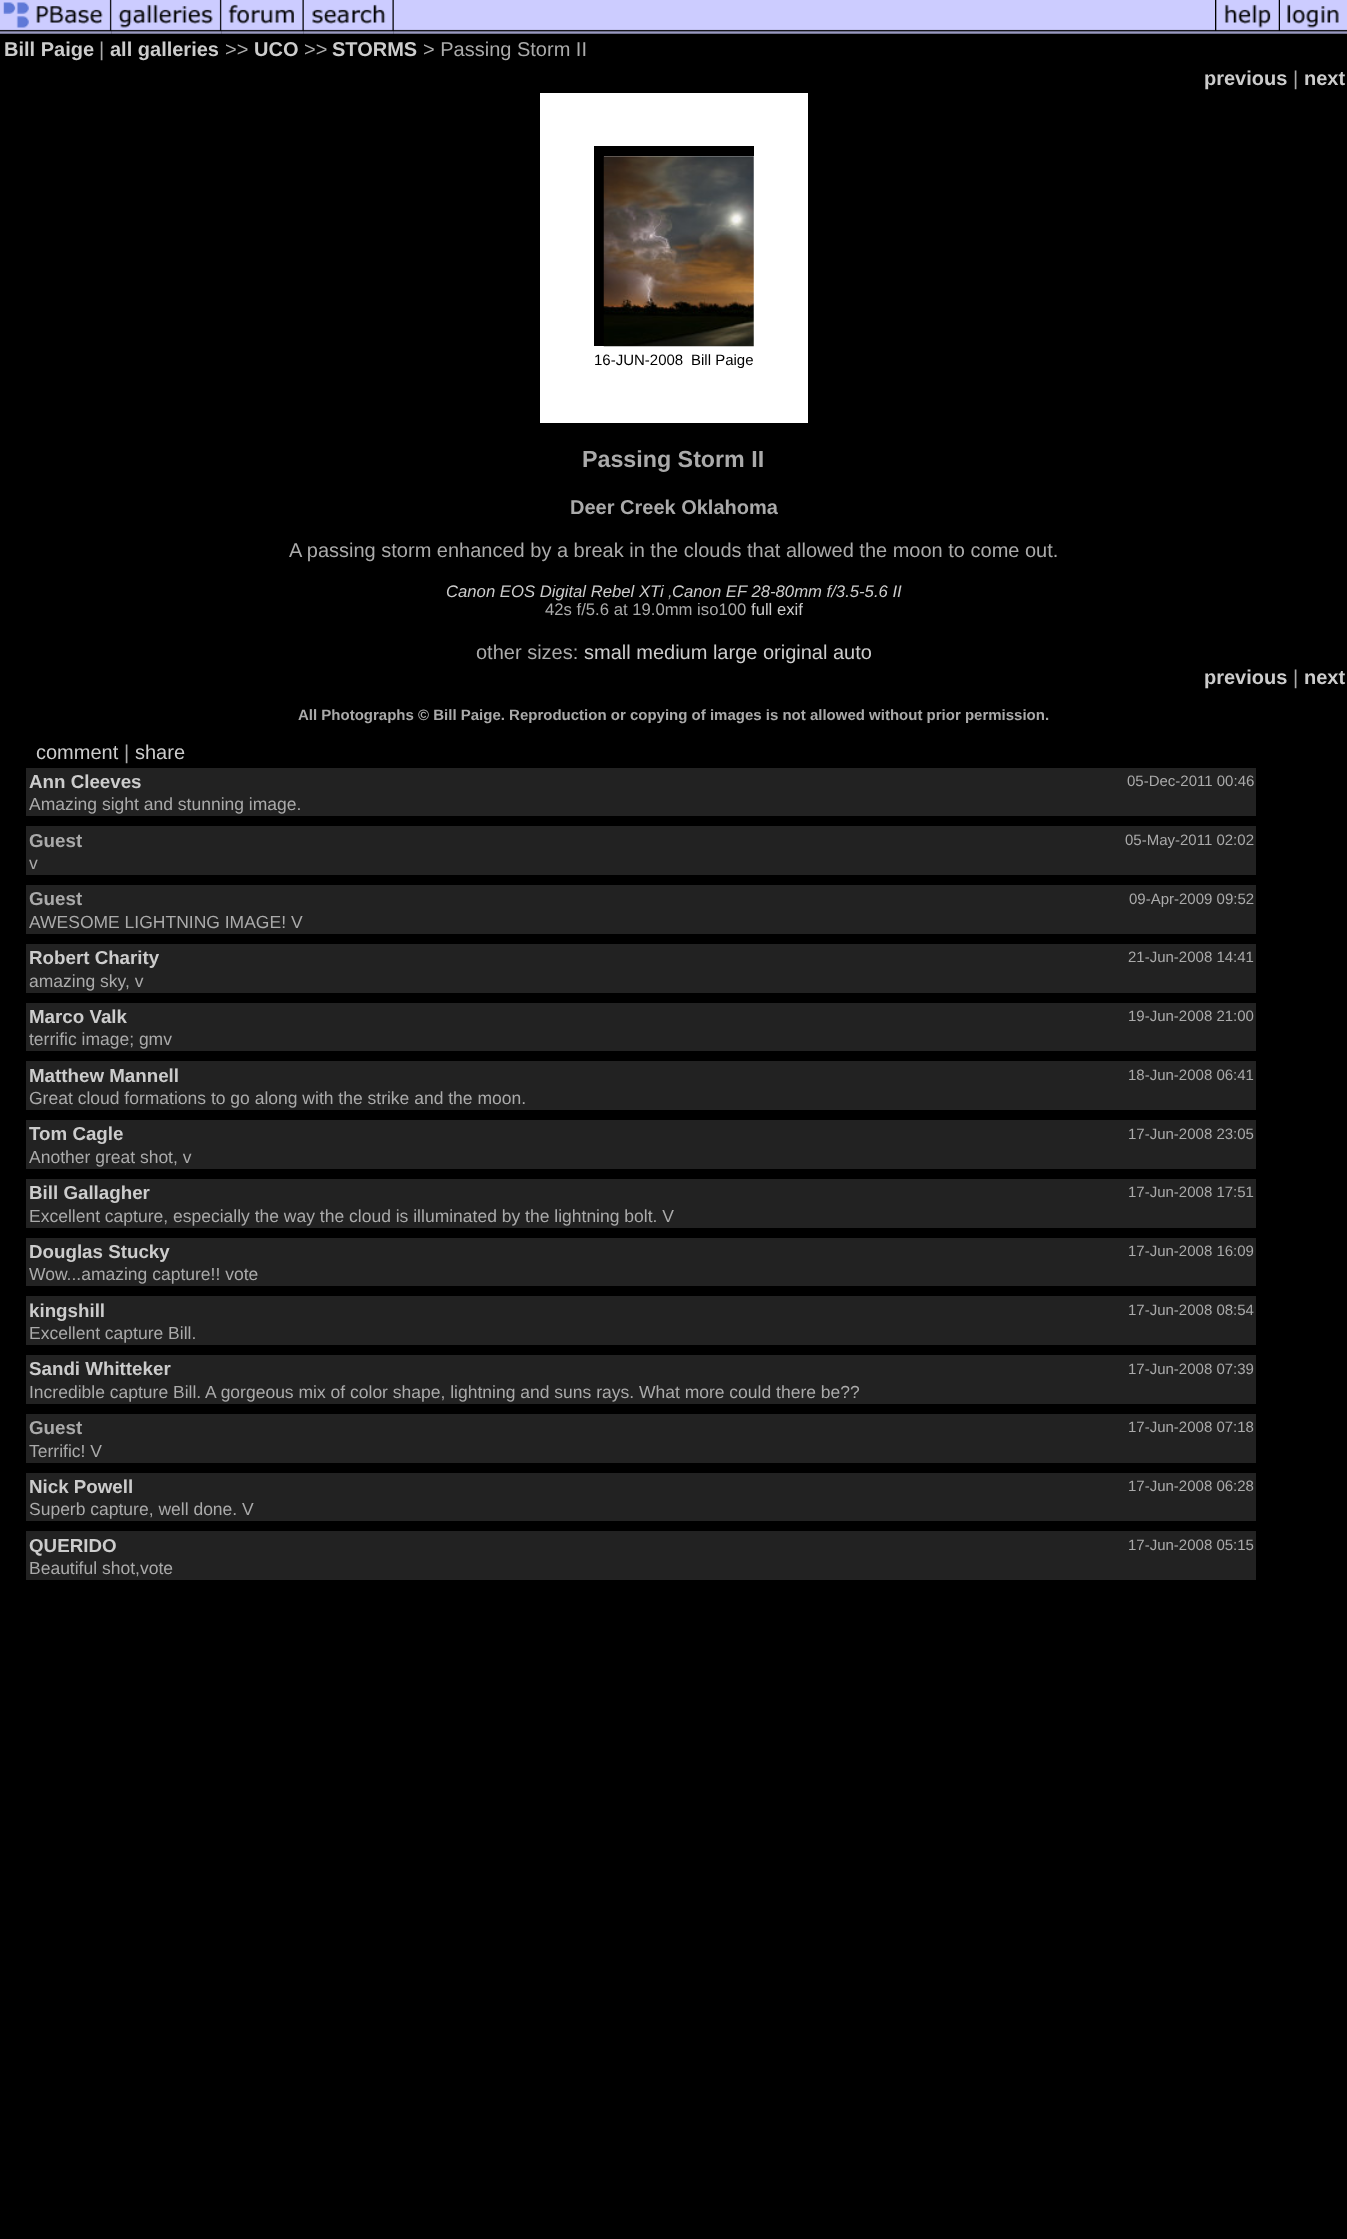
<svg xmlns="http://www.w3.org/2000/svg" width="1347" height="2239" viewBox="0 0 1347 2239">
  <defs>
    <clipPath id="clip1"><path d="M594 146h160v200H594z"/></clipPath>
  </defs>
  <rect width="100%" height="100%" fill="#000"/>
  <image x="0" y="0" width="112" height="34" href="img/1.png"/>
  <image x="111" y="0" width="111" height="34" href="img/2.png"/>
  <image x="221" y="0" width="83" height="34" href="img/3.png"/>
  <image x="303" y="0" width="91" height="34" href="img/4.png"/>
  <image x="393" y="0" width="822" height="34" href="img/5.png"/>
  <image x="1215" y="0" width="65" height="34" href="img/6.png"/>
  <image x="1280" y="0" width="67" height="34" href="img/7.png"/>
  <path d="M540 93h268v330H540z" fill="#fff"/>
  <g clip-path="url(#clip1)">
    <path d="M599 151h166v207H599z" fill="none" stroke="#000" stroke-width="10"/>
  </g>
  <image x="603" y="156" width="151" height="191" href="img/8.png"/>
  <path d="M26 768h1230v48H26z" fill="#222"/>
  <path d="M26 826h1230v49H26z" fill="#222"/>
  <path d="M26 885h1230v49H26z" fill="#222"/>
  <path d="M26 944h1230v49H26z" fill="#222"/>
  <path d="M26 1003h1230v48H26z" fill="#222"/>
  <path d="M26 1061h1230v49H26z" fill="#222"/>
  <path d="M26 1120h1230v49H26z" fill="#222"/>
  <path d="M26 1179h1230v49H26z" fill="#222"/>
  <path d="M26 1238h1230v48H26z" fill="#222"/>
  <path d="M26 1296h1230v49H26z" fill="#222"/>
  <path d="M26 1355h1230v49H26z" fill="#222"/>
  <path d="M26 1414h1230v49H26z" fill="#222"/>
  <path d="M26 1473h1230v48H26z" fill="#222"/>
  <path d="M26 1531h1230v49H26z" fill="#222"/>
  <text x="4" y="56" font-family="Liberation Sans" font-size="20" font-weight="bold" fill="#ccc">Bill Paige</text>
  <text x="99" y="56" font-family="Liberation Sans" font-size="20" fill="#aaa">|</text>
  <text x="110" y="56" font-family="Liberation Sans" font-size="20" font-weight="bold" fill="#ccc">all galleries</text>
  <text x="225" y="56" font-family="Liberation Sans" font-size="20" fill="#aaa">&gt;&gt;</text>
  <text x="254" y="56" font-family="Liberation Sans" font-size="20" font-weight="bold" fill="#ccc">UCO</text>
  <text x="304" y="56" font-family="Liberation Sans" font-size="20" fill="#aaa">&gt;&gt;</text>
  <text x="332" y="56" font-family="Liberation Sans" font-size="20" font-weight="bold" fill="#ccc">STORMS</text>
  <text x="423" y="56" font-family="Liberation Sans" font-size="20" fill="#aaa">&gt; Passing Storm II</text>
  <text x="1204" y="85" font-family="Liberation Sans" font-size="20" font-weight="bold" fill="#ccc">previous</text>
  <text x="1293" y="85" font-family="Liberation Sans" font-size="20" fill="#aaa">|</text>
  <text x="1304" y="85" font-family="Liberation Sans" font-size="20" font-weight="bold" fill="#ccc">next</text>
  <g font-family="Liberation Sans" font-size="15" fill="#000">
    <text x="594" y="365">16-JUN-2008</text>
    <text x="691" y="365">Bill Paige</text>
  </g>
  <text x="582" y="467" font-family="Liberation Sans" font-size="23.25" font-weight="bold" fill="#aaa">Passing Storm II</text>
  <text x="570" y="514" font-family="Liberation Sans" font-size="20" font-weight="bold" fill="#aaa">Deer Creek Oklahoma</text>
  <text x="289" y="557" font-family="Liberation Sans" font-size="20" fill="#aaa">A passing storm enhanced by a break in the clouds that allowed the moon to come out.</text>
  <text x="446" y="597" font-family="Liberation Sans" font-size="16.7" font-style="italic" fill="#ccc">Canon EOS Digital Rebel XTi</text>
  <text x="668" y="597" font-family="Liberation Sans" font-size="16.7" font-style="italic" fill="#aaa">,</text>
  <text x="672" y="597" font-family="Liberation Sans" font-size="16.7" font-style="italic" fill="#ccc">Canon EF 28-80mm f/3.5-5.6 II</text>
  <text x="545" y="615" font-family="Liberation Sans" font-size="16.7" fill="#aaa">42s f/5.6 at 19.0mm iso100</text>
  <text x="751" y="615" font-family="Liberation Sans" font-size="16.7" fill="#ccc">full exif</text>
  <text x="476" y="659" font-family="Liberation Sans" font-size="20" fill="#aaa">other sizes:</text>
  <text x="584" y="659" font-family="Liberation Sans" font-size="20" fill="#ccc">small medium large original auto</text>
  <text x="1204" y="684" font-family="Liberation Sans" font-size="20" font-weight="bold" fill="#ccc">previous</text>
  <text x="1293" y="684" font-family="Liberation Sans" font-size="20" fill="#aaa">|</text>
  <text x="1304" y="684" font-family="Liberation Sans" font-size="20" font-weight="bold" fill="#ccc">next</text>
  <text x="298" y="720" font-family="Liberation Sans" font-size="15" font-weight="bold" fill="#aaa">All Photographs © Bill Paige. Reproduction or copying of images is not allowed without prior permission.</text>
  <text x="36" y="759" font-family="Liberation Sans" font-size="20" fill="#ccc">comment</text>
  <text x="124" y="759" font-family="Liberation Sans" font-size="20" fill="#aaa">|</text>
  <text x="135" y="759" font-family="Liberation Sans" font-size="20" fill="#ccc">share</text>
  <text x="29" y="788" font-family="Liberation Sans" font-size="18.75" font-weight="bold" fill="#ccc">Ann Cleeves</text>
  <text x="1127" y="786" font-family="Liberation Sans" font-size="15" fill="#aaa">05-Dec-2011 00:46</text>
  <text x="29" y="810" font-family="Liberation Sans" font-size="17.5" fill="#aaa">Amazing sight and stunning image.</text>
  <text x="29" y="847" font-family="Liberation Sans" font-size="18.75" font-weight="bold" fill="#aaa">Guest</text>
  <text x="1125" y="845" font-family="Liberation Sans" font-size="15" fill="#aaa">05-May-2011 02:02</text>
  <text x="29" y="869" font-family="Liberation Sans" font-size="17.5" fill="#aaa">v</text>
  <text x="29" y="905" font-family="Liberation Sans" font-size="18.75" font-weight="bold" fill="#aaa">Guest</text>
  <text x="1129" y="904" font-family="Liberation Sans" font-size="15" fill="#aaa">09-Apr-2009 09:52</text>
  <text x="29" y="928" font-family="Liberation Sans" font-size="17.5" fill="#aaa">AWESOME LIGHTNING IMAGE! V</text>
  <text x="29" y="964" font-family="Liberation Sans" font-size="18.75" font-weight="bold" fill="#ccc">Robert Charity</text>
  <text x="1128" y="962" font-family="Liberation Sans" font-size="15" fill="#aaa">21-Jun-2008 14:41</text>
  <text x="29" y="987" font-family="Liberation Sans" font-size="17.5" fill="#aaa">amazing sky, v</text>
  <text x="29" y="1023" font-family="Liberation Sans" font-size="18.75" font-weight="bold" fill="#ccc">Marco Valk</text>
  <text x="1128" y="1021" font-family="Liberation Sans" font-size="15" fill="#aaa">19-Jun-2008 21:00</text>
  <text x="29" y="1045" font-family="Liberation Sans" font-size="17.5" fill="#aaa">terrific image; gmv</text>
  <text x="29" y="1082" font-family="Liberation Sans" font-size="18.75" font-weight="bold" fill="#ccc">Matthew Mannell</text>
  <text x="1128" y="1080" font-family="Liberation Sans" font-size="15" fill="#aaa">18-Jun-2008 06:41</text>
  <text x="29" y="1104" font-family="Liberation Sans" font-size="17.5" fill="#aaa">Great cloud formations to go along with the strike and the moon.</text>
  <text x="29" y="1140" font-family="Liberation Sans" font-size="18.75" font-weight="bold" fill="#ccc">Tom Cagle</text>
  <text x="1128" y="1139" font-family="Liberation Sans" font-size="15" fill="#aaa">17-Jun-2008 23:05</text>
  <text x="29" y="1163" font-family="Liberation Sans" font-size="17.5" fill="#aaa">Another great shot, v</text>
  <text x="29" y="1199" font-family="Liberation Sans" font-size="18.75" font-weight="bold" fill="#ccc">Bill Gallagher</text>
  <text x="1128" y="1197" font-family="Liberation Sans" font-size="15" fill="#aaa">17-Jun-2008 17:51</text>
  <text x="29" y="1222" font-family="Liberation Sans" font-size="17.5" fill="#aaa">Excellent capture, especially the way the cloud is illuminated by the lightning bolt. V</text>
  <text x="29" y="1258" font-family="Liberation Sans" font-size="18.75" font-weight="bold" fill="#ccc">Douglas Stucky</text>
  <text x="1128" y="1256" font-family="Liberation Sans" font-size="15" fill="#aaa">17-Jun-2008 16:09</text>
  <text x="29" y="1280" font-family="Liberation Sans" font-size="17.5" fill="#aaa">Wow...amazing capture!! vote</text>
  <text x="29" y="1317" font-family="Liberation Sans" font-size="18.75" font-weight="bold" fill="#ccc">kingshill</text>
  <text x="1128" y="1315" font-family="Liberation Sans" font-size="15" fill="#aaa">17-Jun-2008 08:54</text>
  <text x="29" y="1339" font-family="Liberation Sans" font-size="17.5" fill="#aaa">Excellent capture Bill.</text>
  <text x="29" y="1375" font-family="Liberation Sans" font-size="18.75" font-weight="bold" fill="#ccc">Sandi Whitteker</text>
  <text x="1128" y="1374" font-family="Liberation Sans" font-size="15" fill="#aaa">17-Jun-2008 07:39</text>
  <text x="29" y="1398" font-family="Liberation Sans" font-size="17.5" fill="#aaa">Incredible capture Bill. A gorgeous mix of color shape, lightning and suns rays. What more could there be??</text>
  <text x="29" y="1434" font-family="Liberation Sans" font-size="18.75" font-weight="bold" fill="#aaa">Guest</text>
  <text x="1128" y="1432" font-family="Liberation Sans" font-size="15" fill="#aaa">17-Jun-2008 07:18</text>
  <text x="29" y="1457" font-family="Liberation Sans" font-size="17.5" fill="#aaa">Terrific! V</text>
  <text x="29" y="1493" font-family="Liberation Sans" font-size="18.75" font-weight="bold" fill="#ccc">Nick Powell</text>
  <text x="1128" y="1491" font-family="Liberation Sans" font-size="15" fill="#aaa">17-Jun-2008 06:28</text>
  <text x="29" y="1515" font-family="Liberation Sans" font-size="17.5" fill="#aaa">Superb capture, well done. V</text>
  <text x="29" y="1552" font-family="Liberation Sans" font-size="18.75" font-weight="bold" fill="#ccc">QUERIDO</text>
  <text x="1128" y="1550" font-family="Liberation Sans" font-size="15" fill="#aaa">17-Jun-2008 05:15</text>
  <text x="29" y="1574" font-family="Liberation Sans" font-size="17.5" fill="#aaa">Beautiful shot,vote</text>
</svg>
